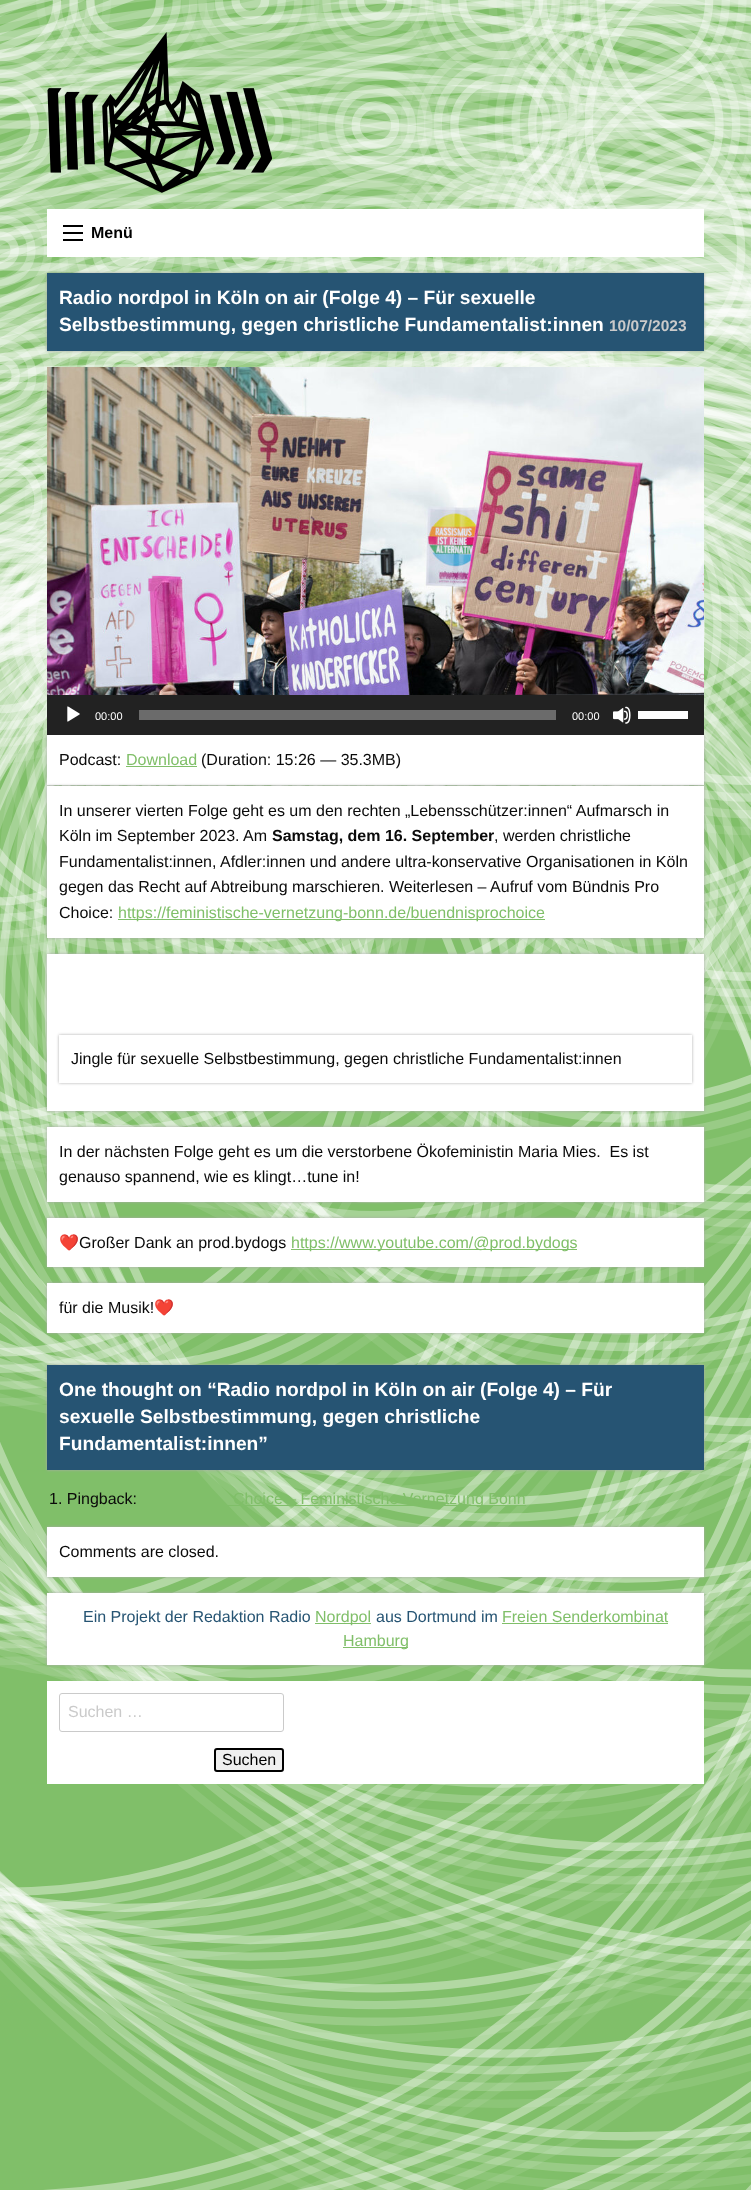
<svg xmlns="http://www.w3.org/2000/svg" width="751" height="2190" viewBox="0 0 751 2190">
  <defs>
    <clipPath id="clip1"><path d="M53 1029H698V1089H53ZM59 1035H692V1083H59Z" clip-rule="evenodd"/></clipPath>
  </defs>
  <rect width="100%" height="100%" fill="#fff"/>
  <image x="0" y="0" width="751" height="2190" href="img/1.png"/>
  <image x="47" y="32" width="225" height="161" href="img/2.png"/>
  <path d="M47 209h657v48H47z" fill="#fff"/>
  <path d="M63 239h20v2H63z" fill="#000"/>
  <path d="M63 232h20v2H63z" fill="#000"/>
  <path d="M63 225h20v2H63z" fill="#000"/>
  <path d="M47 273h657v78H47z" fill="#aaa" filter="blur(1.5px)"/>
  <path d="M47 273h657v78H47z" fill="#265473"/>
  <image x="47" y="367" width="657" height="328" href="img/3.png"/>
  <path d="M47 735h657v50H47z" fill="#aaa" filter="blur(1.5px)"/>
  <path d="M47 695h657v40H47z" fill="#222"/>
  <image x="67" y="706" width="13" height="16" href="img/4.png"/>
  <path d="M139 710h417v10H139z" fill="#6b6b6b"/>
  <image x="613" y="706" width="18" height="18" href="img/5.png"/>
  <path d="M638 711h50v8H638z" fill="#fff"/>
  <path d="M47 735h657v50H47z" fill="#fff"/>
  <path d="M126 766h71v1H126z" fill="#80bf69"/>
  <path d="M47 786h657v152H47z" fill="#aaa" filter="blur(1.5px)"/>
  <path d="M47 786h657v152H47z" fill="#fff"/>
  <path d="M118 919h427v1H118z" fill="#80bf69"/>
  <path d="M47 954h657v157H47z" fill="#aaa" filter="blur(1.5px)"/>
  <path d="M47 954h657v157H47z" fill="#fff"/>
  <g clip-path="url(#clip1)">
    <path d="M59 1035h633v48H59z" fill="#aaa" filter="blur(1.5px)"/>
  </g>
  <path d="M47 1127h657v75H47z" fill="#aaa" filter="blur(1.5px)"/>
  <path d="M47 1127h657v75H47z" fill="#fff"/>
  <path d="M47 1218h657v49H47z" fill="#aaa" filter="blur(1.5px)"/>
  <path d="M47 1218h657v49H47z" fill="#fff"/>
  <path d="M291 1249h286v1H291z" fill="#80bf69"/>
  <path d="M47 1283h657v50H47z" fill="#aaa" filter="blur(1.5px)"/>
  <path d="M47 1283h657v50H47z" fill="#fff"/>
  <path d="M47 1365h657v105H47z" fill="#aaa" filter="blur(1.5px)"/>
  <path d="M47 1365h657v105H47z" fill="#265473"/>
  <path d="M228 1505h298v1H228z" fill="#80bf69"/>
  <path d="M47 1527h657v50H47z" fill="#aaa" filter="blur(1.5px)"/>
  <path d="M47 1527h657v50H47z" fill="#fff"/>
  <path d="M47 1593h657v72H47z" fill="#aaa" filter="blur(1.5px)"/>
  <path d="M47 1593h657v72H47z" fill="#fff"/>
  <path d="M315 1623h56v1H315z" fill="#80bf69"/>
  <path d="M502 1623h166v1H502z" fill="#80bf69"/>
  <path d="M343 1647h65v1H343z" fill="#80bf69"/>
  <path d="M47 1681h657v103H47z" fill="#fff"/>
  <rect x="59.5" y="1693.5" width="224" height="38" rx="2.5" fill="none" stroke="#cacaca"/>
  <rect x="215" y="1749" width="68" height="22" rx="2" fill="#efefef" stroke="#000" stroke-width="2"/>
  <text x="91" y="238" font-family="Liberation Sans" font-size="16" font-weight="bold" fill="#000">Menü</text>
  <g font-family="Liberation Sans" font-size="19.2" font-weight="bold" fill="#fff">
    <text x="59" y="304">Radio nordpol in Köln on air (Folge 4) – Für sexuelle</text>
    <text x="59" y="331">Selbstbestimmung, gegen christliche Fundamentalist:innen</text>
  </g>
  <text x="609" y="331" font-family="Liberation Sans" font-size="15.5" font-weight="bold" fill="#cacaca">10/07/2023</text>
  <g font-family="Liberation Sans" font-size="11" fill="#fff">
    <text x="95" y="720">00:00</text>
    <text x="572" y="720">00:00</text>
  </g>
  <text x="59" y="765" font-family="Liberation Sans" font-size="16" fill="#0a0a0a">Podcast:</text>
  <text x="126" y="765" font-family="Liberation Sans" font-size="16" fill="#80bf69">Download</text>
  <g font-family="Liberation Sans" font-size="16" fill="#0a0a0a">
    <text x="201" y="765">(Duration: 15:26 — 35.3MB)</text>
    <text x="59" y="816">In unserer vierten Folge geht es um den rechten „Lebensschützer:innen“ Aufmarsch in</text>
    <text x="59" y="841">Köln im September 2023. Am</text>
  </g>
  <text x="272" y="841" font-family="Liberation Sans" font-size="16" font-weight="bold" fill="#0a0a0a">Samstag, dem 16. September</text>
  <g font-family="Liberation Sans" font-size="16" fill="#0a0a0a">
    <text x="494" y="841">, werden christliche</text>
    <text x="59" y="867">Fundamentalist:innen, Afdler:innen und andere ultra-konservative Organisationen in Köln</text>
    <text x="59" y="892">gegen das Recht auf Abtreibung marschieren. Weiterlesen – Aufruf vom Bündnis Pro</text>
    <text x="59" y="918">Choice:</text>
  </g>
  <text x="118" y="918" font-family="Liberation Sans" font-size="16" fill="#80bf69">https://feministische-vernetzung-bonn.de/buendnisprochoice</text>
  <g font-family="Liberation Sans" font-size="16" fill="#0a0a0a">
    <text x="71" y="1064">Jingle für sexuelle Selbstbestimmung, gegen christliche Fundamentalist:innen</text>
    <text x="59" y="1157" xml:space="preserve">In der nächsten Folge geht es um die verstorbene Ökofeministin Maria Mies.  Es ist</text>
    <text x="59" y="1182">genauso spannend, wie es klingt…tune in!</text>
  </g>
  <text x="59" y="1248" font-family="Noto Color Emoji" font-size="16" fill="#0a0a0a">❤️</text>
  <text x="79" y="1248" font-family="Liberation Sans" font-size="16" fill="#0a0a0a">Großer Dank an prod.bydogs</text>
  <text x="291" y="1248" font-family="Liberation Sans" font-size="16" fill="#80bf69">https://www.youtube.com/@prod.bydogs</text>
  <text x="59" y="1313" font-family="Liberation Sans" font-size="16" fill="#0a0a0a">für die Musik!</text>
  <text x="154" y="1313" font-family="Noto Color Emoji" font-size="16" fill="#0a0a0a">❤️</text>
  <g font-family="Liberation Sans" font-size="19.2" font-weight="bold" fill="#fff">
    <text x="59" y="1396">One thought on “Radio nordpol in Köln on air (Folge 4) – Für</text>
    <text x="59" y="1423">sexuelle Selbstbestimmung, gegen christliche</text>
    <text x="59" y="1450">Fundamentalist:innen”</text>
  </g>
  <text x="49" y="1504" font-family="Liberation Sans" font-size="16" fill="#0a0a0a">1. Pingback:</text>
  <text x="233" y="1504" font-family="Liberation Sans" font-size="16" fill="#80bf69">Choice – Feministische Vernetzung Bonn</text>
  <text x="59" y="1557" font-family="Liberation Sans" font-size="16" fill="#0a0a0a">Comments are closed.</text>
  <text x="83" y="1622" font-family="Liberation Sans" font-size="16" fill="#265473">Ein Projekt der Redaktion Radio</text>
  <text x="315" y="1622" font-family="Liberation Sans" font-size="16" fill="#80bf69">Nordpol</text>
  <text x="376" y="1622" font-family="Liberation Sans" font-size="16" fill="#265473">aus Dortmund im</text>
  <g font-family="Liberation Sans" font-size="16" fill="#80bf69">
    <text x="502" y="1622">Freien Senderkombinat</text>
    <text x="343" y="1646">Hamburg</text>
  </g>
  <text x="68" y="1717" font-family="Liberation Sans" font-size="16" fill="#cacaca">Suchen …</text>
  <text x="222" y="1765" font-family="Liberation Sans" font-size="16" fill="#000">Suchen</text>
</svg>
